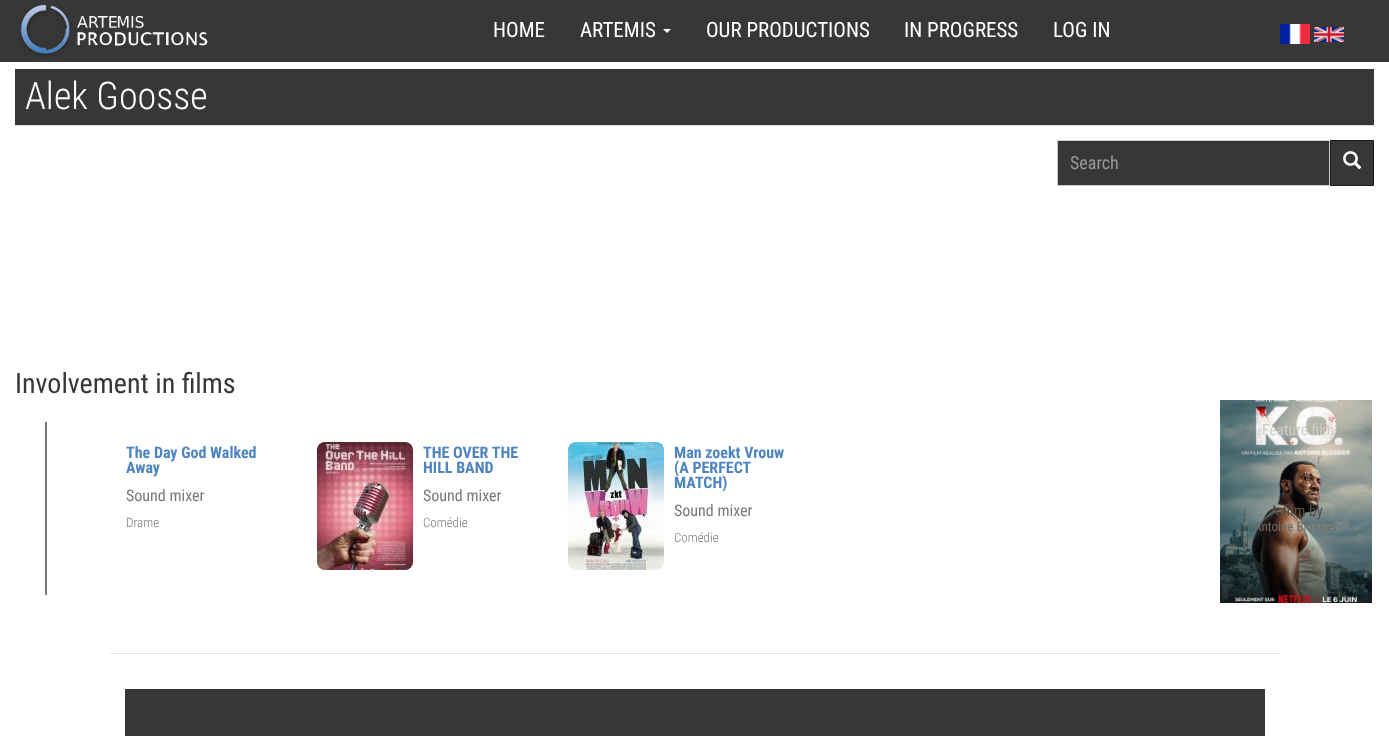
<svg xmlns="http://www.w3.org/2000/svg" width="1389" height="736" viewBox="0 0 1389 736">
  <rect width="100%" height="100%" fill="#fff"/>
  <path d="M0 0h1389v62H0z" fill="#373737"/>
  <image x="20" y="4" width="188" height="53" href="img/1.png"/>
  <path d="M663 29H671L667 33Z" fill="#fff"/>
  <image x="1280" y="24" width="30" height="20" href="img/2.png"/>
  <image x="1314" y="27" width="30" height="15" href="img/3.png"/>
  <path d="M15 69h1359v56H15z" fill="#373737"/>
  <path d="M15 125h1359v1H15z" fill="#ddd"/>
  <path d="M45 422h2v173H45z" fill="#787878"/>
  <image x="317" y="442" width="96" height="128" href="img/4.png"/>
  <image x="568" y="442" width="96" height="128" href="img/5.png"/>
  <path d="M1058 142h271v43H1058z" fill="#373737"/>
  <path d="M1058 141h271v1H1058z" fill="#333"/>
  <path d="M1057.5 140.5h272v45H1057.5z" fill="none" stroke="#ccc"/>
  <path d="M1330.5 140.5h43v45H1330.5z" fill="#373737" stroke="#1a1a1a"/>
  <image x="1343" y="151" width="19" height="19" href="img/6.png"/>
  <image x="1220" y="400" width="152" height="203" href="img/7.png"/>
  <path d="M110 653h1170v1H110z" fill="#e5e5e5"/>
  <path d="M125 689h1140v47H125z" fill="#373737"/>
  <g font-family="Roboto Condensed" font-size="21" fill="#fff">
    <text x="493" y="37">HOME</text>
    <text x="580" y="37">ARTEMIS</text>
    <text x="706" y="37">OUR PRODUCTIONS</text>
    <text x="904" y="37">IN PROGRESS</text>
    <text x="1053" y="37">LOG IN</text>
  </g>
  <text x="25" y="109" font-family="Roboto Condensed" font-size="38" font-weight="300" fill="#fff">Alek Goosse</text>
  <text x="15" y="393" font-family="Roboto Condensed" font-size="28" fill="#373737">Involvement in films</text>
  <g font-family="Roboto Condensed" font-size="16" font-weight="bold" fill="#4e84c0">
    <text x="126" y="458">The Day God Walked</text>
    <text x="126" y="473">Away</text>
  </g>
  <text x="126" y="501" font-family="Roboto Condensed" font-size="16" fill="#787878">Sound mixer</text>
  <text x="126" y="527" font-family="Roboto Condensed" font-size="13" font-weight="300" fill="#787878">Drame</text>
  <g font-family="Roboto Condensed" font-size="16" font-weight="bold" fill="#4e84c0">
    <text x="423" y="458">THE OVER THE</text>
    <text x="423" y="473">HILL BAND</text>
  </g>
  <text x="423" y="501" font-family="Roboto Condensed" font-size="16" fill="#787878">Sound mixer</text>
  <text x="423" y="527" font-family="Roboto Condensed" font-size="13" font-weight="300" fill="#787878">Comédie</text>
  <g font-family="Roboto Condensed" font-size="16" font-weight="bold" fill="#4e84c0">
    <text x="674" y="458">Man zoekt Vrouw</text>
    <text x="674" y="473">(A PERFECT</text>
    <text x="674" y="488">MATCH)</text>
  </g>
  <text x="674" y="516" font-family="Roboto Condensed" font-size="16" fill="#787878">Sound mixer</text>
  <text x="674" y="542" font-family="Roboto Condensed" font-size="13" font-weight="300" fill="#787878">Comédie</text>
  <text x="1070" y="169" font-family="Roboto Condensed" font-size="18" fill="#999">Search</text>
  <text x="1262" y="435" font-family="Roboto Condensed" font-size="15.5" fill="#cdcec8">Feature film</text>
  <text x="1317" y="464" font-family="Roboto Condensed" font-size="14" fill="#999a92">r</text>
  <text x="1295" y="484" font-family="Roboto Condensed" font-size="14" fill="#6c4936">File</text>
  <text x="1270" y="516" font-family="Roboto Condensed" font-size="15.5" fill="#554f48">A film by</text>
  <text x="1254" y="531" font-family="Roboto Condensed" font-size="13" fill="#6d6c66">Antoine Blossier</text>
</svg>
